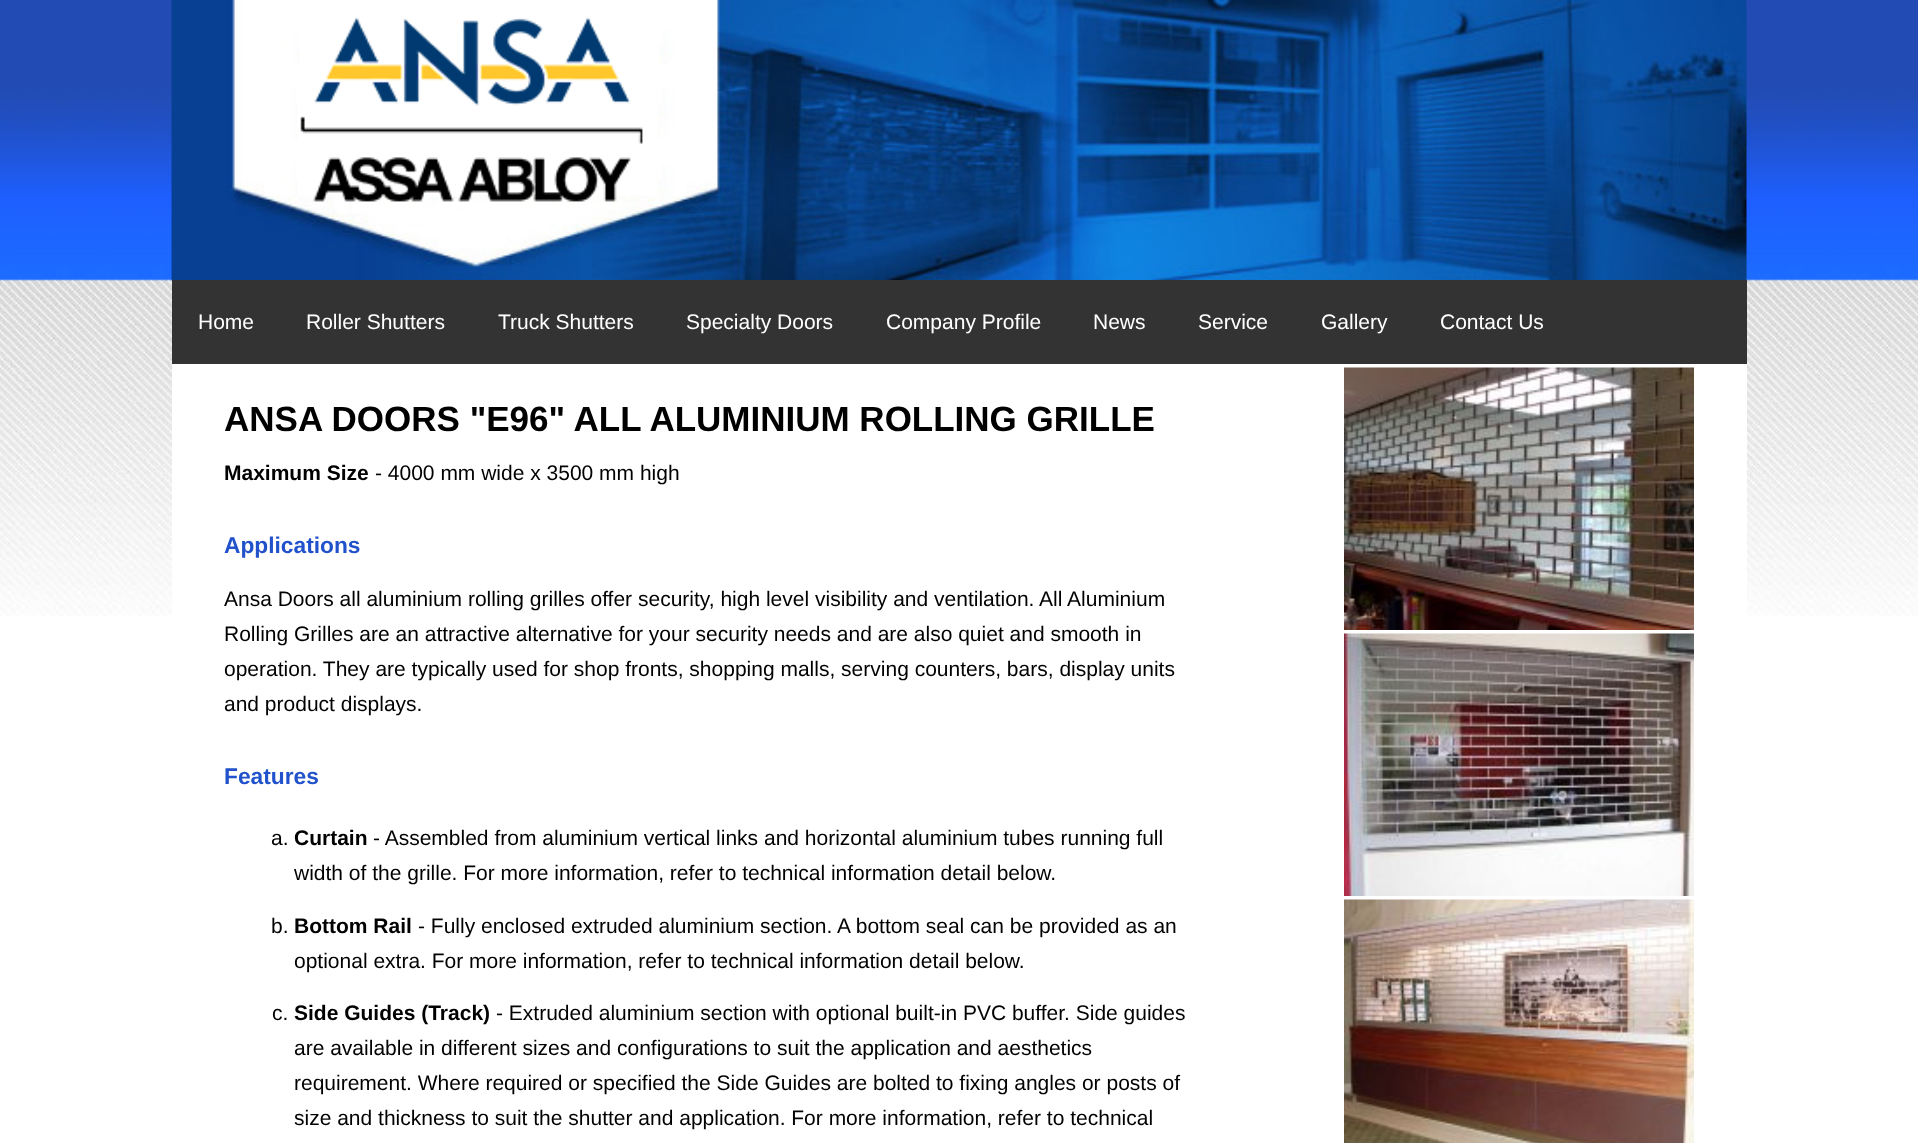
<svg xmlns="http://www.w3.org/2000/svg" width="1918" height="1143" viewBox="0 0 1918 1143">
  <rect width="100%" height="100%" fill="#fff"/>
  <image x="0" y="0" width="1918" height="616" href="img/1.png"/>
  <image x="171" y="0" width="1576" height="280" href="img/2.png"/>
  <path d="M172 280h1575v84H172z" fill="#333"/>
  <path d="M172 364h1575v252H172z" fill="#fff"/>
  <image x="1344" y="367" width="350" height="263" href="img/3.png"/>
  <image x="1344" y="633" width="350" height="263" href="img/4.png"/>
  <image x="1344" y="899" width="350" height="244" href="img/5.png"/>
  <g font-family="Liberation Sans" font-size="21" fill="#fff">
    <text x="198" y="329">Home</text>
    <text x="306" y="329">Roller Shutters</text>
    <text x="498" y="329">Truck Shutters</text>
    <text x="686" y="329">Specialty Doors</text>
    <text x="886" y="329">Company Profile</text>
    <text x="1093" y="329">News</text>
    <text x="1198" y="329">Service</text>
    <text x="1321" y="329">Gallery</text>
    <text x="1440" y="329">Contact Us</text>
  </g>
  <text x="224" y="431" font-family="Liberation Sans" font-size="35" font-weight="bold" fill="#000">ANSA DOORS "E96" ALL ALUMINIUM ROLLING GRILLE</text>
  <text x="224" y="480" font-family="Liberation Sans" font-size="21" font-weight="bold" fill="#000">Maximum Size</text>
  <text x="375" y="480" font-family="Liberation Sans" font-size="21" fill="#000">- 4000 mm wide x 3500 mm high</text>
  <text x="224" y="553" font-family="Liberation Sans" font-size="22.75" font-weight="bold" fill="#2152cb">Applications</text>
  <g font-family="Liberation Sans" font-size="21" fill="#000">
    <text x="224" y="606">Ansa Doors all aluminium rolling grilles offer security, high level visibility and ventilation. All Aluminium</text>
    <text x="224" y="641">Rolling Grilles are an attractive alternative for your security needs and are also quiet and smooth in</text>
    <text x="224" y="676">operation. They are typically used for shop fronts, shopping malls, serving counters, bars, display units</text>
    <text x="224" y="711">and product displays.</text>
  </g>
  <text x="224" y="784" font-family="Liberation Sans" font-size="22.75" font-weight="bold" fill="#2152cb">Features</text>
  <text x="271" y="845" font-family="Liberation Sans" font-size="21" fill="#000">a.</text>
  <text x="294" y="845" font-family="Liberation Sans" font-size="21" font-weight="bold" fill="#000">Curtain</text>
  <g font-family="Liberation Sans" font-size="21" fill="#000">
    <text x="373" y="845">- Assembled from aluminium vertical links and horizontal aluminium tubes running full</text>
    <text x="294" y="880">width of the grille. For more information, refer to technical information detail below.</text>
    <text x="271" y="933">b.</text>
  </g>
  <text x="294" y="933" font-family="Liberation Sans" font-size="21" font-weight="bold" fill="#000">Bottom Rail</text>
  <g font-family="Liberation Sans" font-size="21" fill="#000">
    <text x="418" y="933">- Fully enclosed extruded aluminium section. A bottom seal can be provided as an</text>
    <text x="294" y="968">optional extra. For more information, refer to technical information detail below.</text>
    <text x="272" y="1020">c.</text>
  </g>
  <text x="294" y="1020" font-family="Liberation Sans" font-size="21" font-weight="bold" fill="#000">Side Guides (Track)</text>
  <g font-family="Liberation Sans" font-size="21" fill="#000">
    <text x="496" y="1020">- Extruded aluminium section with optional built-in PVC buffer. Side guides</text>
    <text x="294" y="1055">are available in different sizes and configurations to suit the application and aesthetics</text>
    <text x="294" y="1090">requirement. Where required or specified the Side Guides are bolted to fixing angles or posts of</text>
    <text x="294" y="1125">size and thickness to suit the shutter and application. For more information, refer to technical</text>
  </g>
</svg>
